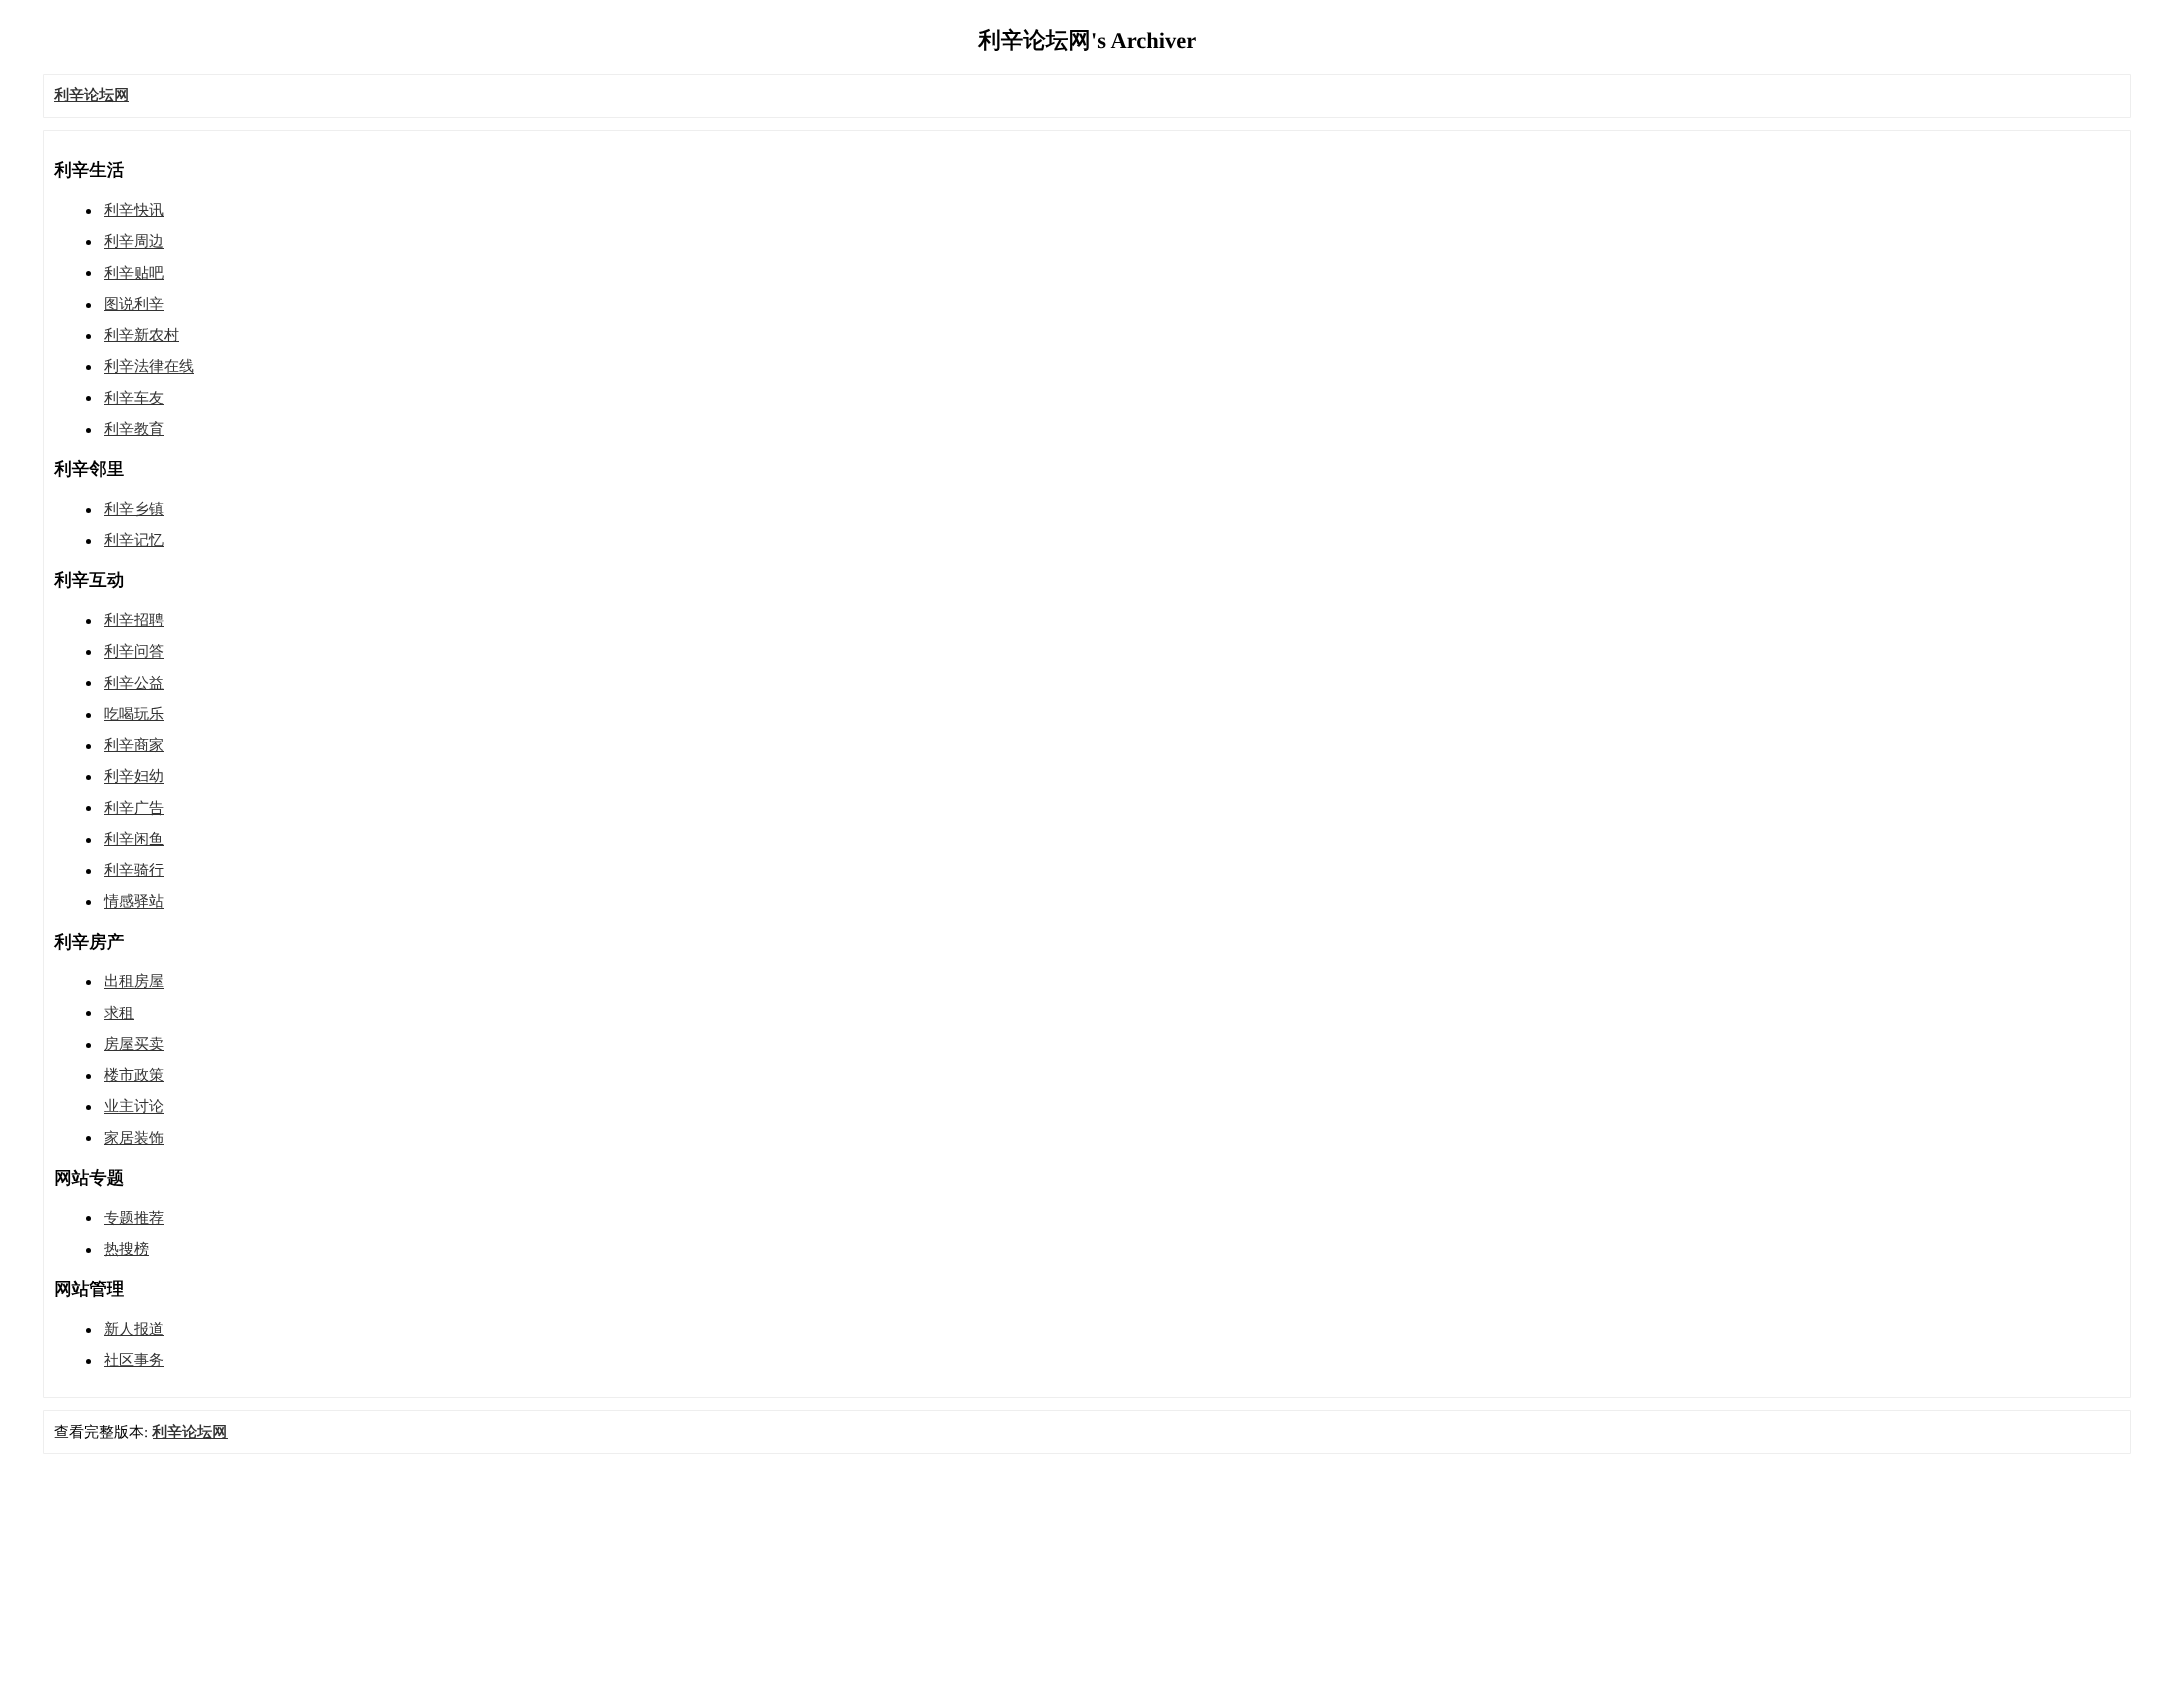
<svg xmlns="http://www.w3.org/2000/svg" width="2173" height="1697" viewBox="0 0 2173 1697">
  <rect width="100%" height="100%" fill="#fff"/>
  <path d="M43.5 74.5h2087v43H43.5z" fill="none" stroke="#eee"/>
  <path d="M54 101h75v1H54z" fill="#333"/>
  <path d="M43.5 130.5h2087v1267H43.5z" fill="none" stroke="#eee"/>
  <circle cx="88.5" cy="211.5" r="2.5" fill="#000"/>
  <path d="M104 216h60v1H104z" fill="#333"/>
  <circle cx="88.5" cy="242.5" r="2.5" fill="#000"/>
  <path d="M104 248h60v1H104z" fill="#333"/>
  <circle cx="88.5" cy="273.5" r="2.5" fill="#000"/>
  <path d="M104 279h60v1H104z" fill="#333"/>
  <circle cx="88.5" cy="305.5" r="2.5" fill="#000"/>
  <path d="M104 310h60v1H104z" fill="#333"/>
  <circle cx="88.5" cy="336.5" r="2.5" fill="#000"/>
  <path d="M104 341h75v1H104z" fill="#333"/>
  <circle cx="88.5" cy="367.5" r="2.5" fill="#000"/>
  <path d="M104 373h90v1H104z" fill="#333"/>
  <circle cx="88.5" cy="398.5" r="2.5" fill="#000"/>
  <path d="M104 404h60v1H104z" fill="#333"/>
  <circle cx="88.5" cy="430.5" r="2.5" fill="#000"/>
  <path d="M104 435h60v1H104z" fill="#333"/>
  <circle cx="88.5" cy="510.5" r="2.5" fill="#000"/>
  <path d="M104 515h60v1H104z" fill="#333"/>
  <circle cx="88.5" cy="541.5" r="2.5" fill="#000"/>
  <path d="M104 546h60v1H104z" fill="#333"/>
  <circle cx="88.5" cy="621.5" r="2.5" fill="#000"/>
  <path d="M104 626h60v1H104z" fill="#333"/>
  <circle cx="88.5" cy="652.5" r="2.5" fill="#000"/>
  <path d="M104 658h60v1H104z" fill="#333"/>
  <circle cx="88.5" cy="683.5" r="2.5" fill="#000"/>
  <path d="M104 689h60v1H104z" fill="#333"/>
  <circle cx="88.5" cy="715.5" r="2.5" fill="#000"/>
  <path d="M104 720h60v1H104z" fill="#333"/>
  <circle cx="88.5" cy="746.5" r="2.5" fill="#000"/>
  <path d="M104 751h60v1H104z" fill="#333"/>
  <circle cx="88.5" cy="777.5" r="2.5" fill="#000"/>
  <path d="M104 783h60v1H104z" fill="#333"/>
  <circle cx="88.5" cy="808.5" r="2.5" fill="#000"/>
  <path d="M104 814h60v1H104z" fill="#333"/>
  <circle cx="88.5" cy="840.5" r="2.5" fill="#000"/>
  <path d="M104 845h60v1H104z" fill="#333"/>
  <circle cx="88.5" cy="871.5" r="2.5" fill="#000"/>
  <path d="M104 876h60v1H104z" fill="#333"/>
  <circle cx="88.5" cy="902.5" r="2.5" fill="#000"/>
  <path d="M104 908h60v1H104z" fill="#333"/>
  <circle cx="88.5" cy="982.5" r="2.5" fill="#000"/>
  <path d="M104 988h60v1H104z" fill="#333"/>
  <circle cx="88.5" cy="1013.5" r="2.5" fill="#000"/>
  <path d="M104 1019h30v1H104z" fill="#333"/>
  <circle cx="88.5" cy="1045.5" r="2.5" fill="#000"/>
  <path d="M104 1050h60v1H104z" fill="#333"/>
  <circle cx="88.5" cy="1076.5" r="2.5" fill="#000"/>
  <path d="M104 1081h60v1H104z" fill="#333"/>
  <circle cx="88.5" cy="1107.5" r="2.5" fill="#000"/>
  <path d="M104 1113h60v1H104z" fill="#333"/>
  <circle cx="88.5" cy="1138.5" r="2.5" fill="#000"/>
  <path d="M104 1144h60v1H104z" fill="#333"/>
  <circle cx="88.5" cy="1218.5" r="2.5" fill="#000"/>
  <path d="M104 1224h60v1H104z" fill="#333"/>
  <circle cx="88.5" cy="1250.5" r="2.5" fill="#000"/>
  <path d="M104 1255h45v1H104z" fill="#333"/>
  <circle cx="88.5" cy="1330.5" r="2.5" fill="#000"/>
  <path d="M104 1335h60v1H104z" fill="#333"/>
  <circle cx="88.5" cy="1361.5" r="2.5" fill="#000"/>
  <path d="M104 1366h60v1H104z" fill="#333"/>
  <path d="M43.5 1410.5h2087v43H43.5z" fill="none" stroke="#eee"/>
  <path d="M153 1438h75v1H153z" fill="#333"/>
  <text x="978" y="48" font-family="WenQuanYi Zen Hei" font-size="22.5" font-weight="bold" fill="#000">利辛论坛网</text>
  <text x="1091" y="48" font-family="Liberation Serif" font-size="22.5" font-weight="bold" fill="#000">'s Archiver</text>
  <text x="54" y="100" font-family="WenQuanYi Zen Hei" font-size="15" font-weight="bold" fill="#333">利辛论坛网</text>
  <text x="54" y="176" font-family="WenQuanYi Zen Hei" font-size="17.5" font-weight="bold" fill="#000">利辛生活</text>
  <g font-family="WenQuanYi Zen Hei" font-size="15" font-weight="500" fill="#333">
    <text x="104" y="215">利辛快讯</text>
    <text x="104" y="246">利辛周边</text>
    <text x="104" y="278">利辛贴吧</text>
    <text x="104" y="309">图说利辛</text>
    <text x="104" y="340">利辛新农村</text>
    <text x="104" y="371">利辛法律在线</text>
    <text x="104" y="403">利辛车友</text>
    <text x="104" y="434">利辛教育</text>
  </g>
  <text x="54" y="475" font-family="WenQuanYi Zen Hei" font-size="17.5" font-weight="bold" fill="#000">利辛邻里</text>
  <g font-family="WenQuanYi Zen Hei" font-size="15" font-weight="500" fill="#333">
    <text x="104" y="514">利辛乡镇</text>
    <text x="104" y="545">利辛记忆</text>
  </g>
  <text x="54" y="586" font-family="WenQuanYi Zen Hei" font-size="17.5" font-weight="bold" fill="#000">利辛互动</text>
  <g font-family="WenQuanYi Zen Hei" font-size="15" font-weight="500" fill="#333">
    <text x="104" y="625">利辛招聘</text>
    <text x="104" y="656">利辛问答</text>
    <text x="104" y="688">利辛公益</text>
    <text x="104" y="719">吃喝玩乐</text>
    <text x="104" y="750">利辛商家</text>
    <text x="104" y="781">利辛妇幼</text>
    <text x="104" y="813">利辛广告</text>
    <text x="104" y="844">利辛闲鱼</text>
    <text x="104" y="875">利辛骑行</text>
    <text x="104" y="906">情感驿站</text>
  </g>
  <text x="54" y="948" font-family="WenQuanYi Zen Hei" font-size="17.5" font-weight="bold" fill="#000">利辛房产</text>
  <g font-family="WenQuanYi Zen Hei" font-size="15" font-weight="500" fill="#333">
    <text x="104" y="986">出租房屋</text>
    <text x="104" y="1018">求租</text>
    <text x="104" y="1049">房屋买卖</text>
    <text x="104" y="1080">楼市政策</text>
    <text x="104" y="1111">业主讨论</text>
    <text x="104" y="1143">家居装饰</text>
  </g>
  <text x="54" y="1184" font-family="WenQuanYi Zen Hei" font-size="17.5" font-weight="bold" fill="#000">网站专题</text>
  <g font-family="WenQuanYi Zen Hei" font-size="15" font-weight="500" fill="#333">
    <text x="104" y="1223">专题推荐</text>
    <text x="104" y="1254">热搜榜</text>
  </g>
  <text x="54" y="1295" font-family="WenQuanYi Zen Hei" font-size="17.5" font-weight="bold" fill="#000">网站管理</text>
  <g font-family="WenQuanYi Zen Hei" font-size="15" font-weight="500" fill="#333">
    <text x="104" y="1334">新人报道</text>
    <text x="104" y="1365">社区事务</text>
  </g>
  <text x="54" y="1437" font-family="WenQuanYi Zen Hei" font-size="15" font-weight="500" fill="#000">查看完整版本</text>
  <text x="144" y="1437" font-family="Liberation Serif" font-size="15" fill="#000">:</text>
  <text x="152" y="1437" font-family="WenQuanYi Zen Hei" font-size="15" font-weight="bold" fill="#333">利辛论坛网</text>
</svg>
